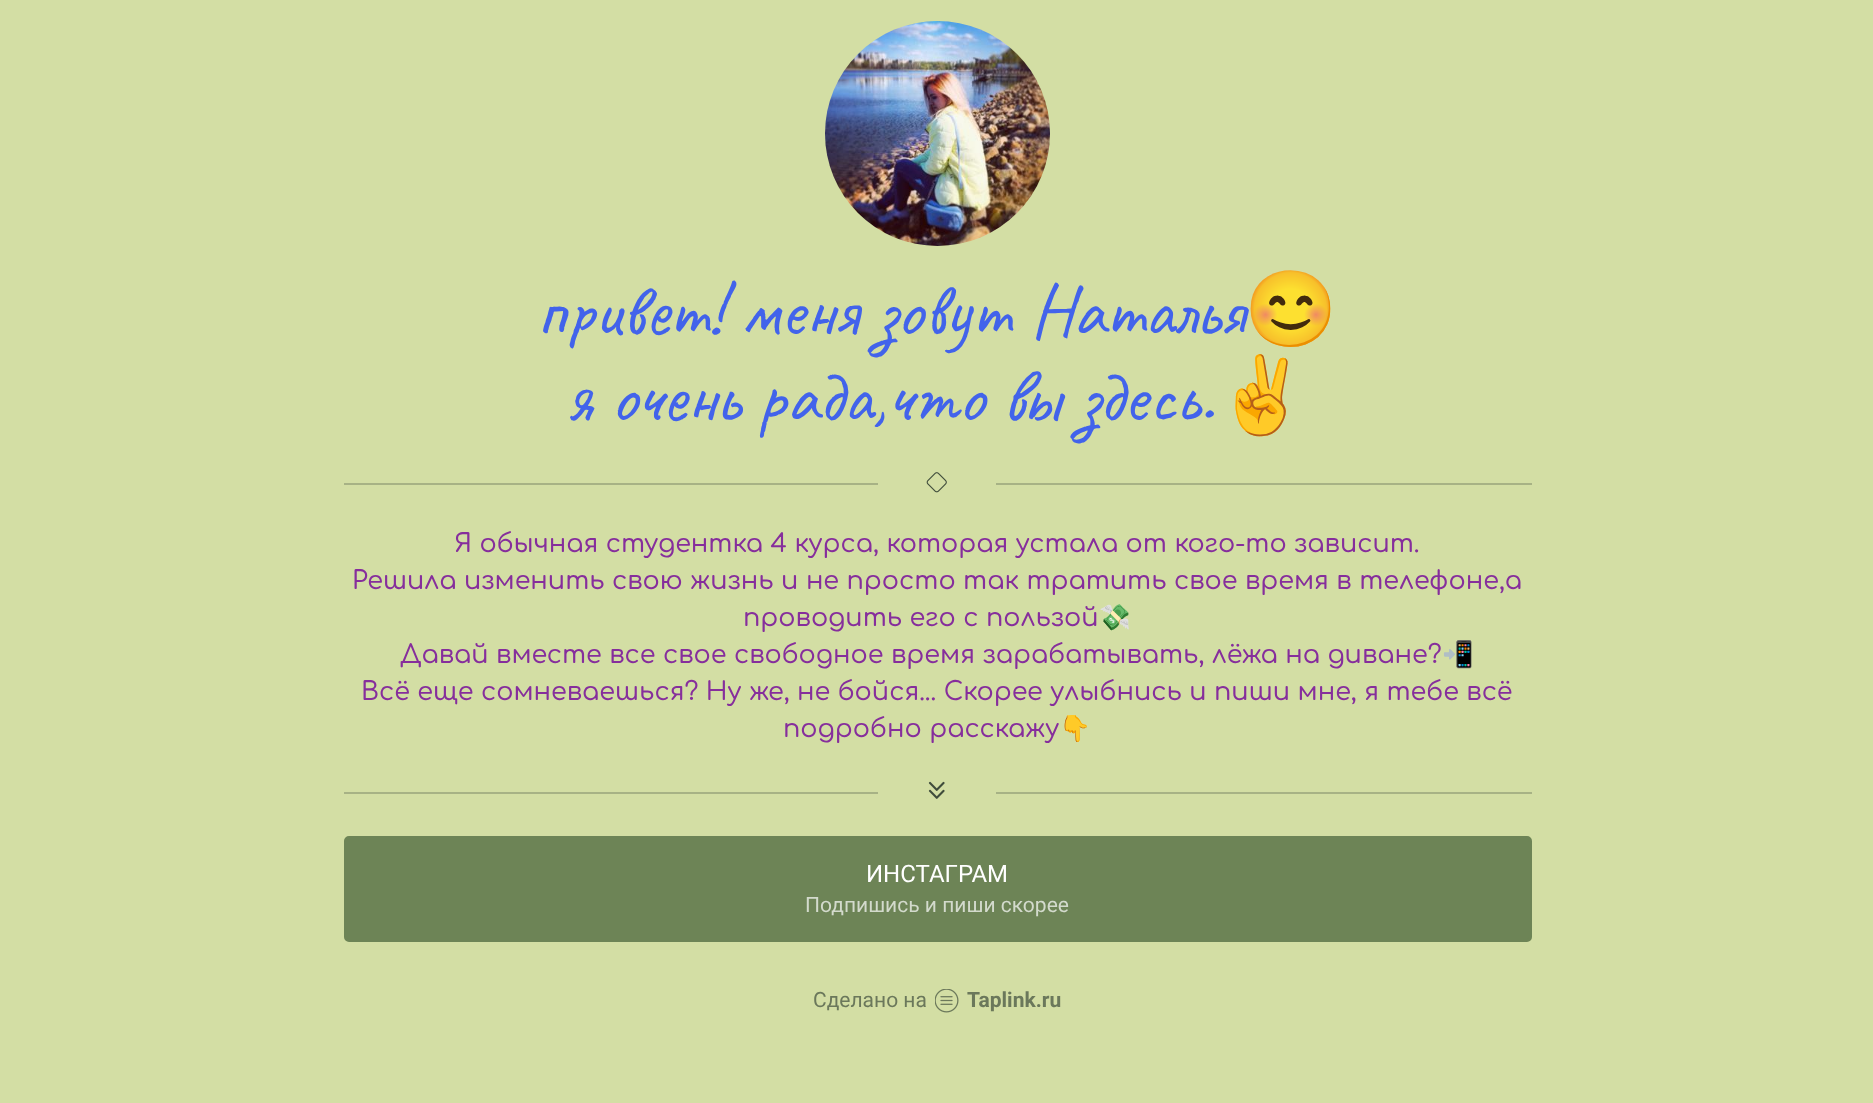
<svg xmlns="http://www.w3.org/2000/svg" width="1873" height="1103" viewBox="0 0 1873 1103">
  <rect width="100%" height="100%" fill="#d3dea4"/>
  <image x="825" y="21" width="225" height="225" href="img/1.png"/>
  <path d="M344 483h534v2H344z" fill="#a7b285"/>
  <image x="926" y="472" width="21" height="21" href="img/2.png"/>
  <path d="M996 483h536v2H996z" fill="#a7b285"/>
  <path d="M344 792h534v2H344z" fill="#a7b285"/>
  <image x="928" y="781" width="17" height="18" href="img/3.png"/>
  <path d="M996 792h536v2H996z" fill="#a7b285"/>
  <rect x="345.5" y="837.5" width="1185" height="103" rx="3.5" fill="#6d8456" stroke="#6d8456" stroke-width="3"/>
  <image x="935" y="989" width="24" height="24" href="img/4.png"/>
  <text x="536" y="335" font-family="Caveat" font-size="75" fill="#4263eb">привет! меня зовут Наталья</text>
  <text x="1244" y="335" font-family="Noto Color Emoji" font-size="75" fill="#4263eb">😊</text>
  <text x="565" y="421" font-family="Caveat" font-size="75" fill="#4263eb">я очень рада,что вы здесь.</text>
  <text x="1215" y="421" font-family="Noto Color Emoji" font-size="75" fill="#4263eb">✌️</text>
  <g font-family="Comfortaa" font-size="25.5" font-weight="500" fill="#862e9c">
    <text x="454" y="552">Я обычная студентка 4 курса, которая устала от кого-то зависит.</text>
    <text x="352" y="589">Решила изменить свою жизнь и не просто так тратить свое время в телефоне,а</text>
    <text x="743" y="626">проводить его с пользой</text>
  </g>
  <text x="1099" y="626" font-family="Noto Color Emoji" font-size="25.5" fill="#862e9c">💸</text>
  <text x="400" y="663" font-family="Comfortaa" font-size="25.5" font-weight="500" fill="#862e9c">Давай вместе все свое свободное время зарабатывать, лёжа на диване?</text>
  <text x="1442" y="663" font-family="Noto Color Emoji" font-size="25.5" fill="#862e9c">📲</text>
  <g font-family="Comfortaa" font-size="25.5" font-weight="500" fill="#862e9c">
    <text x="361" y="700">Всё еще сомневаешься? Ну же, не бойся... Скорее улыбнись и пиши мне, я тебе всё</text>
    <text x="783" y="737">подробно расскажу</text>
  </g>
  <text x="1059" y="737" font-family="Noto Color Emoji" font-size="25.5" fill="#862e9c">👇</text>
  <text x="866" y="882" font-family="Roboto" font-size="24" fill="#fff">ИНСТАГРАМ</text>
  <text x="805" y="912" font-family="Roboto" font-size="21" fill="#d3dacc">Подпишись и пиши скорее</text>
  <text x="813" y="1007" font-family="Roboto" font-size="21" fill="#6b785b">Сделано на</text>
  <text x="967" y="1007" font-family="Roboto" font-size="21" font-weight="bold" fill="#6b785b">Taplink.ru</text>
</svg>
